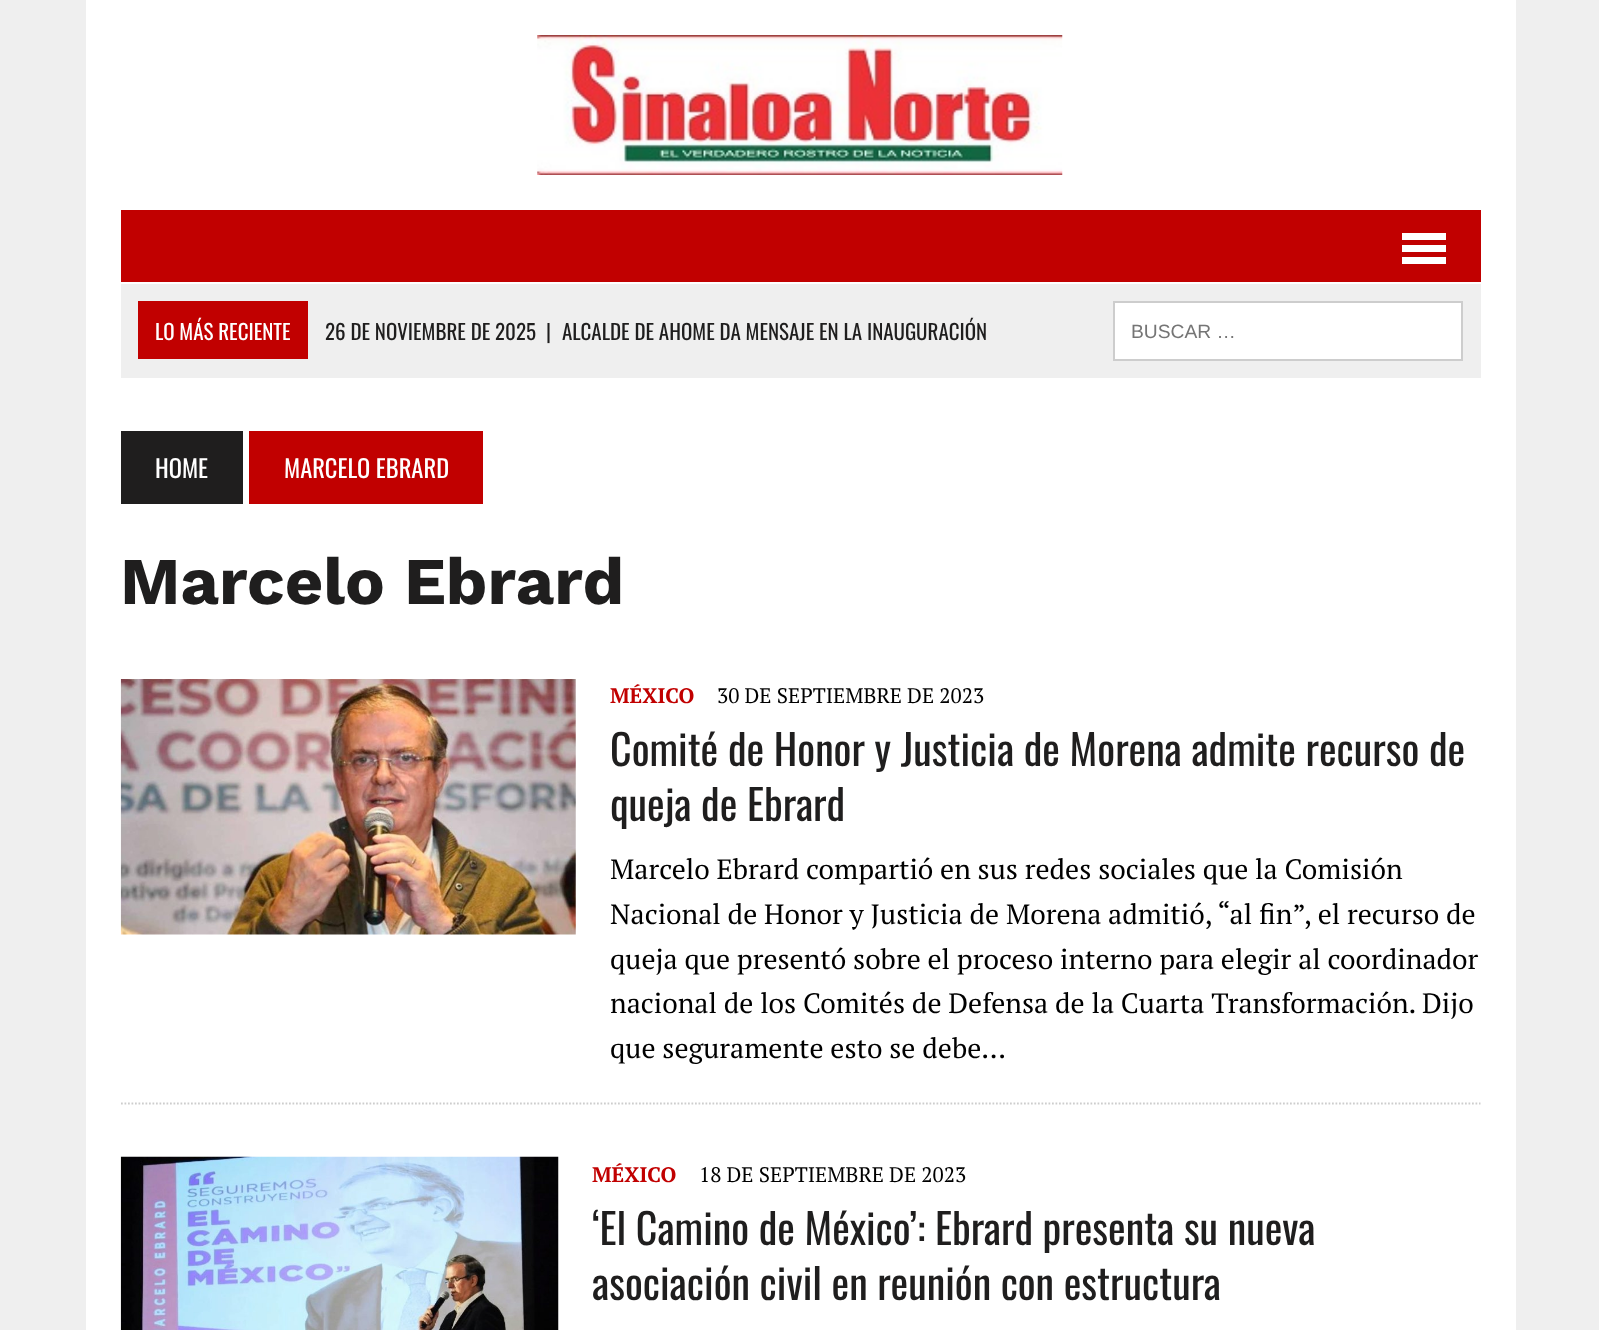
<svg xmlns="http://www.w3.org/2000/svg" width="1599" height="1330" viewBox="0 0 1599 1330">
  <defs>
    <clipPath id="clip1"><path d="M611 847h870v224H611z"/></clipPath>
  </defs>
  <rect width="100%" height="100%" fill="#efefef"/>
  <path d="M86 0h1430v1330H86z" fill="#fff"/>
  <image x="537" y="35" width="526" height="140" href="img/1.png"/>
  <path d="M121 210h1360v72H121z" fill="#c10000"/>
  <path d="M1402 233h44v7H1402z" fill="#fff"/>
  <path d="M1402 245h44v7H1402z" fill="#fff"/>
  <path d="M1402 257h44v7H1402z" fill="#fff"/>
  <path d="M121 284h1360v94H121z" fill="#efefef"/>
  <path d="M138 301h170v58H138z" fill="#c10000"/>
  <path d="M1114 302h348v58H1114z" fill="#fff" stroke="#cdcdcd" stroke-width="2"/>
  <path d="M121 431h122v73H121z" fill="#1f1e1e"/>
  <path d="M249 431h234v73H249z" fill="#c10000"/>
  <image x="120" y="679" width="456" height="256" href="img/2.png"/>
  <path d="M121 1103.5H1480.5" fill="none" stroke="#cdcdcd" stroke-width="1.8" stroke-dasharray="1.75 1.75"/>
  <image x="120" y="1156" width="439" height="174" href="img/3.png"/>
  <text x="155" y="340" font-family="Oswald" font-size="21" fill="#fff">LO MÁS RECIENTE</text>
  <g font-family="Oswald" font-size="21" fill="#1f1e1e">
    <text x="325" y="340">26 DE NOVIEMBRE DE 2025</text>
    <text x="546" y="340">|</text>
    <text x="562" y="340">ALCALDE DE AHOME DA MENSAJE EN LA INAUGURACIÓN</text>
  </g>
  <text x="1131" y="338" font-family="Liberation Sans" font-size="19.25" fill="#757575">BUSCAR …</text>
  <g font-family="Oswald" font-size="24.5" fill="#fff">
    <text x="155" y="478">HOME</text>
    <text x="284" y="478">MARCELO EBRARD</text>
  </g>
  <text x="120" y="604" font-family="Work Sans" font-size="66.5" font-weight="bold" fill="#1f1e1e">Marcelo Ebrard</text>
  <text x="610" y="703" font-family="PT Serif" font-size="21" font-weight="bold" fill="#c10000">MÉXICO</text>
  <text x="717" y="703" font-family="PT Serif" font-size="21" fill="#000">30 DE SEPTIEMBRE DE 2023</text>
  <g font-family="Oswald" font-size="42" fill="#1f1e1e">
    <text x="610" y="766">Comité de Honor y Justicia de Morena admite recurso de</text>
    <text x="610" y="821">queja de Ebrard</text>
  </g>
  <g clip-path="url(#clip1)">
    <text x="610" y="879" font-family="PT Serif" font-size="28" fill="#000">Marcelo Ebrard compartió en sus redes sociales que la Comisión</text>
  </g>
  <g font-family="PT Serif" font-size="28" fill="#000">
    <text x="610" y="924">Nacional de Honor y Justicia de Morena admitió, “al fin”, el recurso de</text>
    <text x="610" y="969">queja que presentó sobre el proceso interno para elegir al coordinador</text>
  </g>
  <g clip-path="url(#clip1)">
    <text x="610" y="1013" font-family="PT Serif" font-size="28" fill="#000">nacional de los Comités de Defensa de la Cuarta Transformación. Dijo</text>
  </g>
  <text x="610" y="1058" font-family="PT Serif" font-size="28" fill="#000">que seguramente esto se debe…</text>
  <text x="592" y="1182" font-family="PT Serif" font-size="21" font-weight="bold" fill="#c10000">MÉXICO</text>
  <text x="699" y="1182" font-family="PT Serif" font-size="21" fill="#000">18 DE SEPTIEMBRE DE 2023</text>
  <g font-family="Oswald" font-size="42" fill="#1f1e1e">
    <text x="592" y="1245">‘El Camino de México’: Ebrard presenta su nueva</text>
    <text x="592" y="1300">asociación civil en reunión con estructura</text>
  </g>
</svg>
